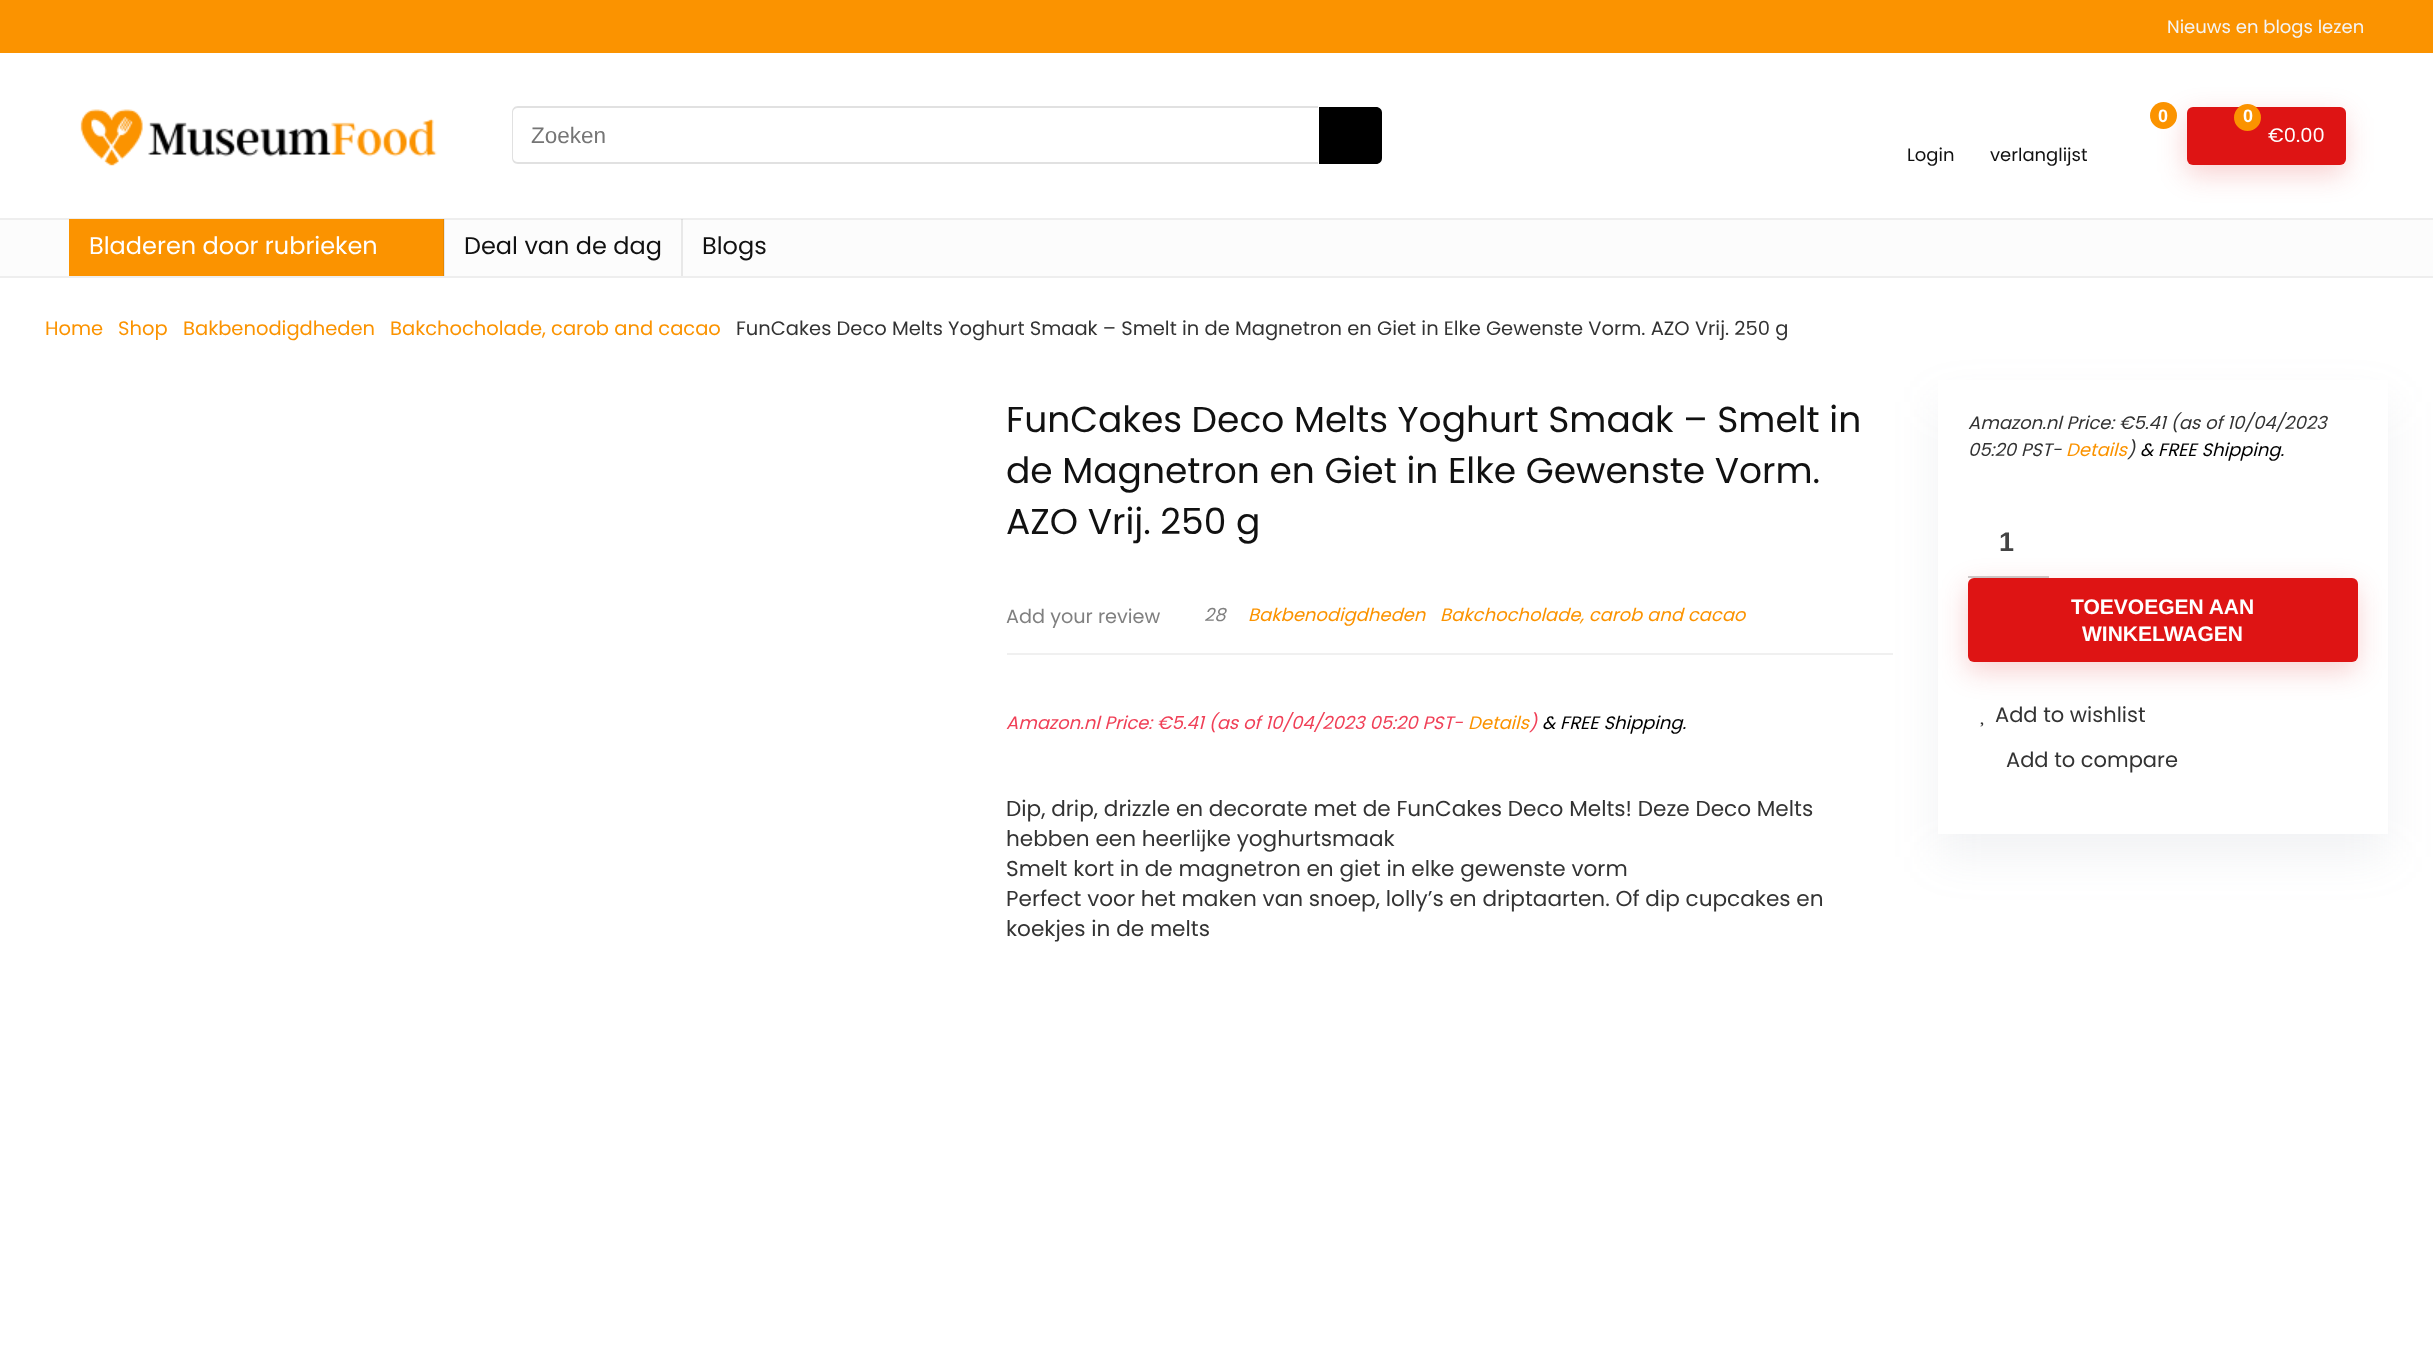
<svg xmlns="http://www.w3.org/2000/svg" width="2433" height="1350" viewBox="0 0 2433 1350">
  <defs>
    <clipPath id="clip1"><path d="M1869 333H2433V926H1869ZM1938 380H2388V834H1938Z" clip-rule="evenodd"/></clipPath>
  </defs>
  <rect width="100%" height="100%" fill="#fff"/>
  <path d="M0 0h2433v53H0z" fill="#fb9300"/>
  <image x="80" y="109" width="357" height="57" href="img/1.png"/>
  <path d="M518 106H1318V164H518C514 164 512 161 512 158V112C512 109 514 106 518 106ZM518 108H1318V162H518C515 162 513 160 513 158V112C513 110 515 108 518 108Z" fill="#e1e1e1" fill-rule="evenodd"/>
  <path d="M1319 107H1376C1379.5 107 1382 109.5 1382 113V158C1382 161.5 1379.5 164 1376 164H1319Z" fill="#000"/>
  <rect x="2186" y="116" width="159" height="58" rx="6" fill="#de141433" filter="blur(14px)"/>
  <circle cx="2163.5" cy="115.5" r="13.5" fill="#fb9300"/>
  <rect x="2187" y="107" width="159" height="58" rx="6" fill="#de1414"/>
  <circle cx="2247.5" cy="117.5" r="13.5" fill="#fb9300"/>
  <path d="M0 220h2433v56H0z" fill="#fcfcfc"/>
  <path d="M681 219h2v57H681z" fill="#e8e8e8"/>
  <path d="M444 219h1v57H444z" fill="#e8e8e8"/>
  <path d="M0 218h2433v2H0z" fill="#eee"/>
  <path d="M681 219h2v1H681z" fill="#dbdbdb"/>
  <path d="M443 219h2v1H443z" fill="#dbdbdb"/>
  <path d="M0 276h2433v2H0z" fill="#eee"/>
  <path d="M69 219h374v57H69z" fill="#fb9300"/>
  <path d="M443 219h1v57H443z" fill="#e78700"/>
  <g clip-path="url(#clip1)">
    <path d="M1938 402h450v455H1938z" fill="#777b921a" filter="blur(22.5px)"/>
  </g>
  <path d="M1007 653h886v2H1007z" fill="#f0f0f0"/>
  <path d="M1968 576h81v2H1968z" fill="#ccc"/>
  <rect x="1967" y="587" width="390" height="84" rx="6" fill="#de141433" filter="blur(14px)"/>
  <rect x="1968" y="578" width="390" height="84" rx="6" fill="#de1414"/>
  <image x="1980" y="722" width="4" height="5" href="img/2.png"/>
  <text x="2167" y="33" font-family="Poppins" font-size="18" fill="#f4f4f4">Nieuws en blogs lezen</text>
  <text x="531" y="143" font-family="Liberation Sans" font-size="22.5" fill="#757575">Zoeken</text>
  <g font-family="Liberation Sans" font-size="18" font-weight="bold" fill="#fff">
    <text x="2158" y="122">0</text>
    <text x="2243" y="122">0</text>
  </g>
  <text x="2268" y="142" font-family="Poppins" font-size="19.5" fill="#fff">€0.00</text>
  <g font-family="Poppins" font-size="18" fill="#111">
    <text x="1907" y="161">Login</text>
    <text x="1990" y="161">verlanglijst</text>
  </g>
  <text x="89" y="254" font-family="Poppins" font-size="24" fill="#fff">Bladeren door rubrieken</text>
  <g font-family="Poppins" font-size="24" fill="#111">
    <text x="464" y="254">Deal van de dag</text>
    <text x="702" y="254">Blogs</text>
  </g>
  <g font-family="Poppins" font-size="19.5" fill="#fb9300">
    <text x="45" y="335">Home</text>
    <text x="118" y="335">Shop</text>
    <text x="183" y="335">Bakbenodigdheden</text>
    <text x="390" y="335">Bakchocholade, carob and cacao</text>
  </g>
  <text x="736" y="335" font-family="Poppins" font-size="19.5" fill="#333">FunCakes Deco Melts Yoghurt Smaak – Smelt in de Magnetron en Giet in Elke Gewenste Vorm. AZO Vrij. 250 g</text>
  <g font-family="Poppins" font-size="36" fill="#111">
    <text x="1006" y="432">FunCakes Deco Melts Yoghurt Smaak – Smelt in</text>
    <text x="1006" y="483">de Magnetron en Giet in Elke Gewenste Vorm.</text>
    <text x="1006" y="534">AZO Vrij. 250 g</text>
  </g>
  <text x="1006" y="623" font-family="Poppins" font-size="19.25" fill="#808080">Add your review</text>
  <text x="1204" y="621" font-family="Poppins" font-size="18" font-style="italic" fill="#808080">28</text>
  <g font-family="Poppins" font-size="18" font-style="italic" fill="#fb9300">
    <text x="1248" y="621">Bakbenodigdheden</text>
    <text x="1440" y="621">Bakchocholade, carob and cacao</text>
  </g>
  <text x="1006" y="729" font-family="Poppins" font-size="18" font-style="italic" fill="#f04057">Amazon.nl Price: €5.41 (as of 10/04/2023 05:20 PST-</text>
  <text x="1468" y="729" font-family="Poppins" font-size="18" font-style="italic" fill="#fb9300">Details</text>
  <text x="1529" y="729" font-family="Poppins" font-size="18" font-style="italic" fill="#f04057">)</text>
  <text x="1542" y="729" font-family="Poppins" font-size="18" font-style="italic" fill="#000">&amp; FREE Shipping.</text>
  <g font-family="Poppins" font-size="21.6" fill="#333">
    <text x="1006" y="816">Dip, drip, drizzle en decorate met de FunCakes Deco Melts! Deze Deco Melts</text>
    <text x="1006" y="846">hebben een heerlijke yoghurtsmaak</text>
    <text x="1006" y="876">Smelt kort in de magnetron en giet in elke gewenste vorm</text>
    <text x="1006" y="906">Perfect voor het maken van snoep, lolly’s en driptaarten. Of dip cupcakes en</text>
    <text x="1006" y="936">koekjes in de melts</text>
  </g>
  <g font-family="Poppins" font-size="18" font-style="italic" fill="#333">
    <text x="1968" y="429">Amazon.nl Price: €5.41 (as of 10/04/2023</text>
    <text x="1968" y="456">05:20 PST-</text>
  </g>
  <text x="2066" y="456" font-family="Poppins" font-size="18" font-style="italic" fill="#fb9300">Details</text>
  <text x="2127" y="456" font-family="Poppins" font-size="18" font-style="italic" fill="#333">)</text>
  <text x="2140" y="456" font-family="Poppins" font-size="18" font-style="italic" fill="#000">&amp; FREE Shipping.</text>
  <text x="1999" y="551" font-family="Liberation Sans" font-size="27" font-weight="bold" fill="#444">1</text>
  <g font-family="Liberation Sans" font-size="21" font-weight="bold" fill="#fff">
    <text x="2071" y="614">TOEVOEGEN AAN</text>
    <text x="2082" y="641">WINKELWAGEN</text>
  </g>
  <g font-family="Poppins" font-size="21" fill="#333">
    <text x="1995" y="722">Add to wishlist</text>
    <text x="2006" y="767">Add to compare</text>
  </g>
</svg>
